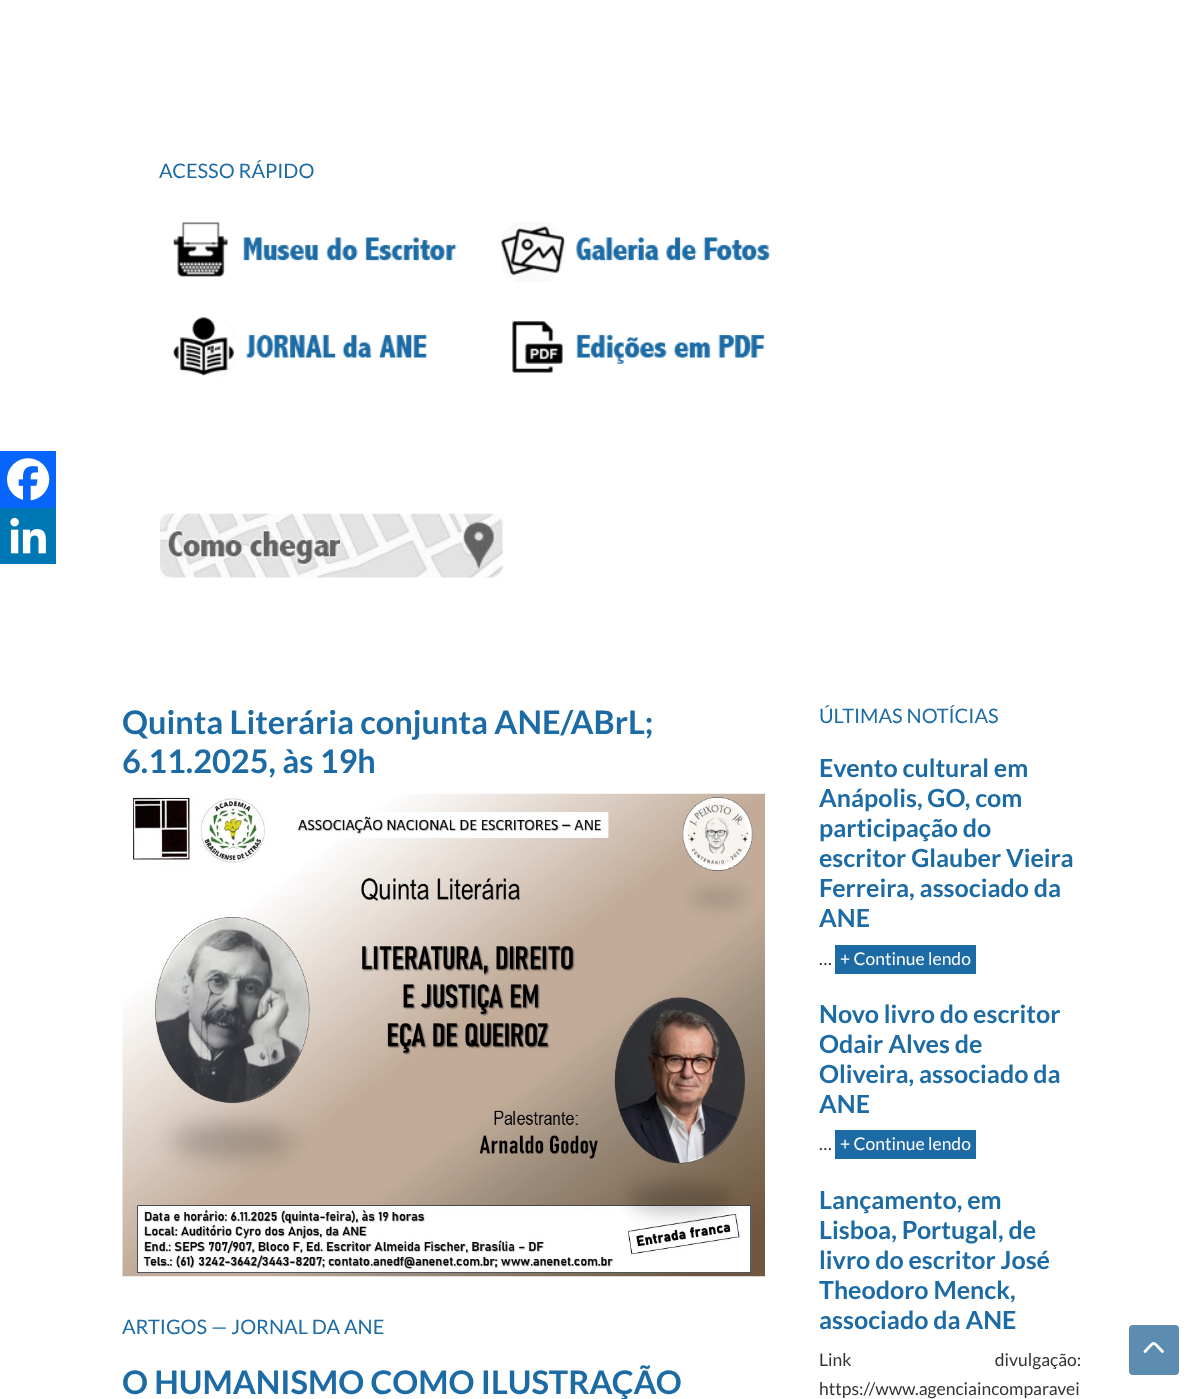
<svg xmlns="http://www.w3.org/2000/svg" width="1203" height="1399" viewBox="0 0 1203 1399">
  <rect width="100%" height="100%" fill="#fff"/>
  <image x="173" y="222" width="284" height="55" href="img/1.png"/>
  <image x="501" y="221" width="270" height="62" href="img/2.png"/>
  <image x="173" y="317" width="254" height="60" href="img/3.png"/>
  <image x="512" y="321" width="253" height="52" href="img/4.png"/>
  <image x="160" y="513" width="344" height="65" href="img/5.png"/>
  <path d="M0 451h56v57H0z" fill="#0765fe"/>
  <image x="7" y="458" width="43" height="43" href="img/6.png"/>
  <path d="M0 508h56v56H0z" fill="#0077b5"/>
  <image x="10" y="517" width="36" height="37" href="img/7.png"/>
  <image x="122" y="793" width="643" height="484" href="img/8.png"/>
  <path d="M835 945h141v29H835z" fill="#1d6ba4"/>
  <path d="M835 1130h141v29H835z" fill="#1d6ba4"/>
  <rect x="1129" y="1325" width="50" height="50" rx="4" fill="#5c8caf"/>
  <path d="M1162.5 1351.5C1152 1341 1155.5 1340.5 1145 1351.5" fill="none" stroke="#fff" stroke-width="2.8" stroke-linecap="round" stroke-linejoin="bevel"/>
  <text x="159" y="178" font-family="Lato" font-size="20" fill="#1d6ba4">ACESSO RÁPIDO</text>
  <g font-family="Lato" font-size="32.5" font-weight="bold" fill="#1d6ba4">
    <text x="122" y="734">Quinta Literária conjunta ANE/ABrL;</text>
    <text x="122" y="773">6.11.2025, às 19h</text>
  </g>
  <text x="122" y="1334" font-family="Lato" font-size="20" fill="#1d6ba4">ARTIGOS — JORNAL DA ANE</text>
  <text x="122" y="1394" font-family="Lato" font-size="32.5" font-weight="bold" fill="#1d6ba4">O HUMANISMO COMO ILUSTRAÇÃO</text>
  <text x="819" y="723" font-family="Lato" font-size="20" fill="#1d6ba4">ÚLTIMAS NOTÍCIAS</text>
  <g font-family="Lato" font-size="25" font-weight="bold" fill="#1d6ba4">
    <text x="819" y="777">Evento cultural em</text>
    <text x="819" y="807">Anápolis, GO, com</text>
    <text x="819" y="837">participação do</text>
    <text x="819" y="867">escritor Glauber Vieira</text>
    <text x="819" y="897">Ferreira, associado da</text>
    <text x="819" y="927">ANE</text>
  </g>
  <text x="819" y="965" font-family="Lato" font-size="17.5" fill="#333">…</text>
  <text x="840" y="965" font-family="Lato" font-size="17.5" fill="#fff">+ Continue lendo</text>
  <g font-family="Lato" font-size="25" font-weight="bold" fill="#1d6ba4">
    <text x="819" y="1023">Novo livro do escritor</text>
    <text x="819" y="1053">Odair Alves de</text>
    <text x="819" y="1083">Oliveira, associado da</text>
    <text x="819" y="1113">ANE</text>
  </g>
  <text x="819" y="1150" font-family="Lato" font-size="17.5" fill="#333">…</text>
  <text x="840" y="1150" font-family="Lato" font-size="17.5" fill="#fff">+ Continue lendo</text>
  <g font-family="Lato" font-size="25" font-weight="bold" fill="#1d6ba4">
    <text x="819" y="1209">Lançamento, em</text>
    <text x="819" y="1239">Lisboa, Portugal, de</text>
    <text x="819" y="1269">livro do escritor José</text>
    <text x="819" y="1299">Theodoro Menck,</text>
    <text x="819" y="1329">associado da ANE</text>
  </g>
  <g font-family="Lato" font-size="17.5" fill="#333">
    <text x="819" y="1366" word-spacing="140">Link divulgação:</text>
    <text x="819" y="1395">https://www.agenciaincomparavei</text>
  </g>
</svg>
